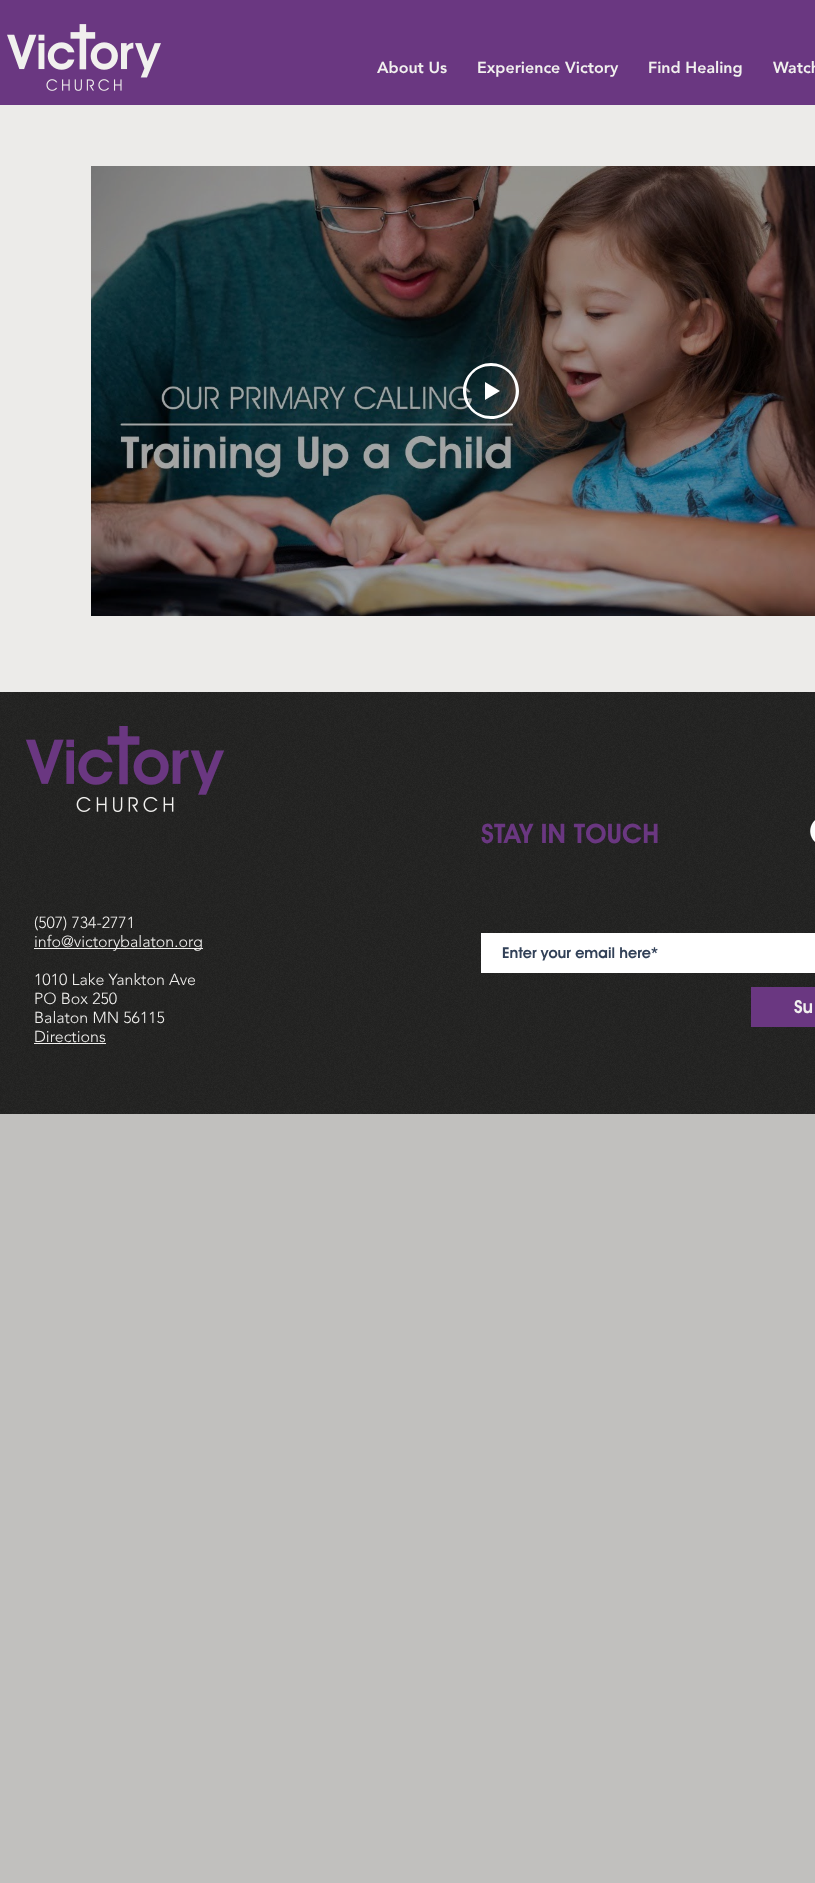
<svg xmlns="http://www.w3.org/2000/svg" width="815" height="1883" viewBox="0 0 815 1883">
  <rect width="100%" height="100%" fill="#c1c0be"/>
  <path d="M0 0h815v105H0z" fill="#6a3781"/>
  <image x="7" y="24" width="154" height="67" href="img/1.png"/>
  <path d="M0 105h815v587H0z" fill="#ecebe9"/>
  <image x="91" y="166" width="724" height="450" href="img/2.png"/>
  <path d="M491 416C524 416 524 366 491 366C458 366 458 416 491 416ZM491 419C476 419 463 406 463 391C463 376 476 363 491 363C506 363 519 376 519 391C519 406 506 419 491 419Z" fill="#fff" fill-rule="evenodd"/>
  <path d="M500 391L485 400V382Z" fill="#fff" fill-rule="evenodd"/>
  <path d="M0 692h815v422H0z" fill="#232322"/>
  <image x="0" y="692" width="815" height="422" href="img/3.png"/>
  <image x="26" y="726" width="198" height="86" href="img/4.png"/>
  <image x="810" y="820" width="5" height="22" href="img/5.png"/>
  <path d="M34 948h169v1H34z" fill="#f1f0ee"/>
  <path d="M34 1043h72v1H34z" fill="#f1f0ee"/>
  <path d="M481 933h334v40H481z" fill="#fff"/>
  <path d="M751 987h64v40H751z" fill="#6a3781"/>
  <g font-family="'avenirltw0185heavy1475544'" font-size="16" font-weight="900" fill="#f1f0ee">
    <text x="377" y="73">About Us</text>
    <text x="477" y="73">Experience Victory</text>
    <text x="648" y="73">Find Healing</text>
    <text x="773" y="73">Watch</text>
  </g>
  <text x="481" y="843" font-family="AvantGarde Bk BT" font-size="27" font-weight="bold" fill="#6a3781">STAY IN TOUCH</text>
  <g font-family="'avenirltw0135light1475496'" font-size="16" font-weight="300" fill="#f1f0ee">
    <text x="34" y="928">(507) 734-2771</text>
    <text x="34" y="947">info@victorybalaton.org</text>
    <text x="34" y="985">1010 Lake Yankton Ave</text>
    <text x="34" y="1004">PO Box 250</text>
    <text x="34" y="1023">Balaton MN 56115</text>
    <text x="34" y="1042">Directions</text>
  </g>
  <text x="502" y="958" font-family="AvantGarde Bk BT" font-size="15" font-weight="bold" fill="#324158">Enter your email here*</text>
  <text x="794" y="1013" font-family="AvantGarde Bk BT" font-size="18" font-weight="bold" fill="#f1f0ee">Su</text>
</svg>
